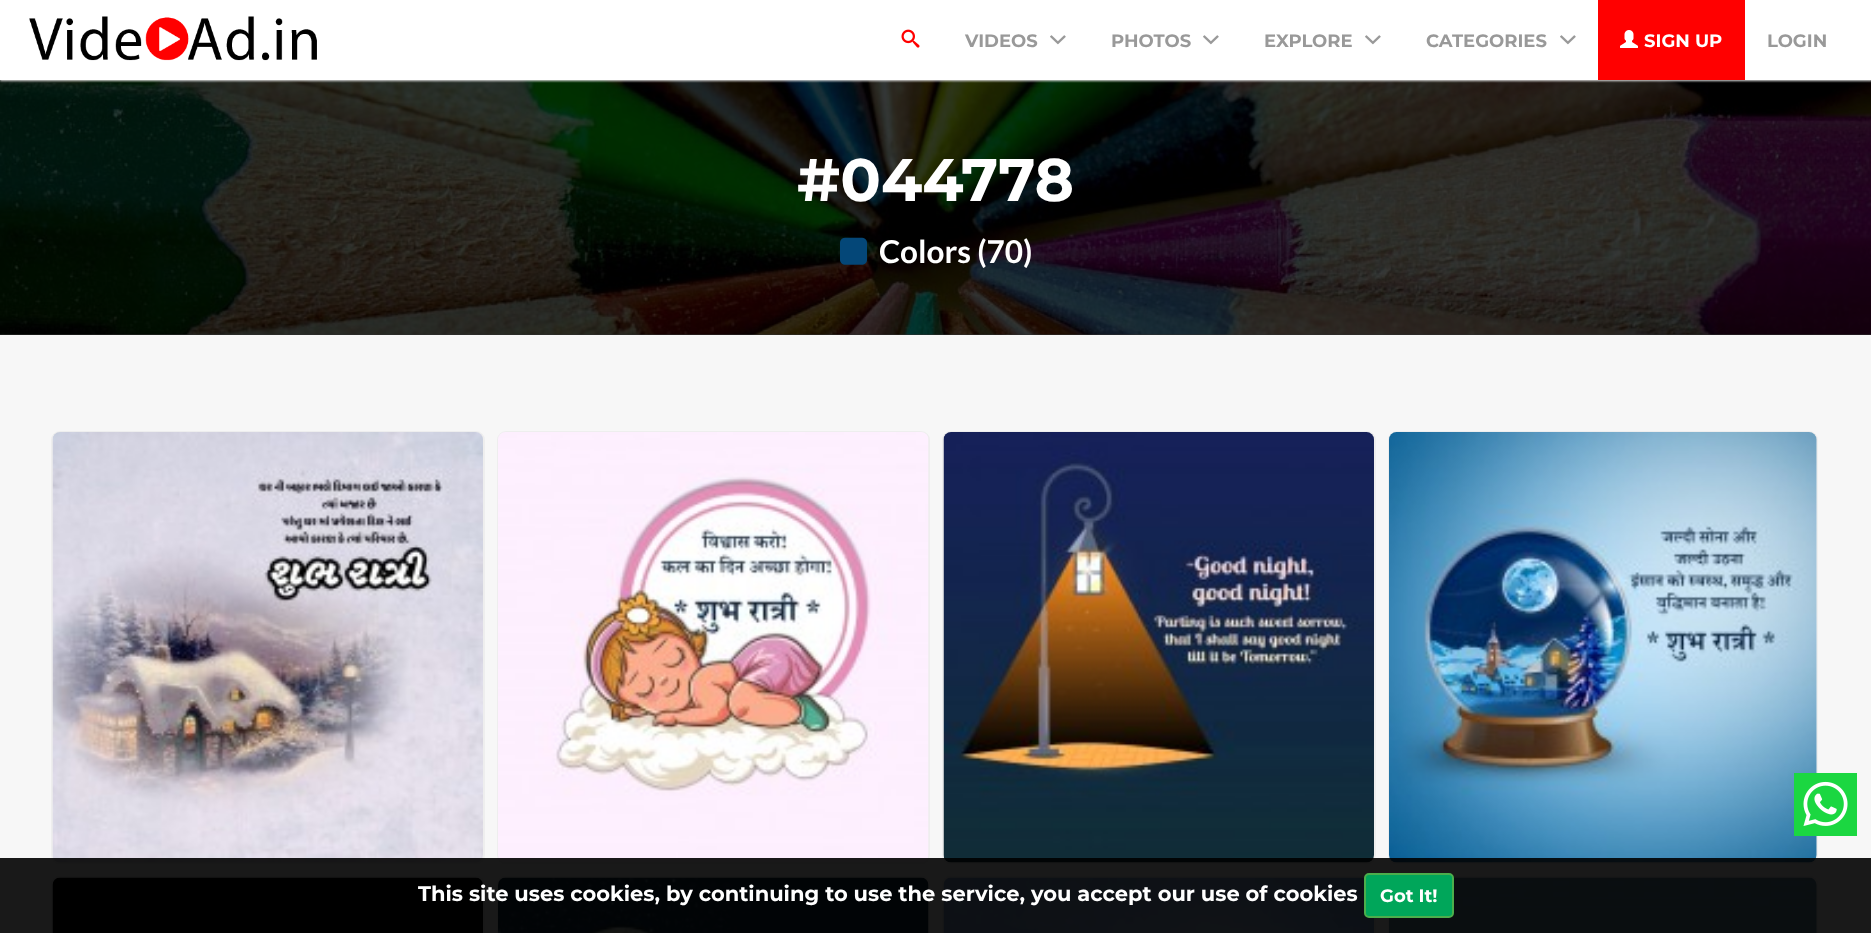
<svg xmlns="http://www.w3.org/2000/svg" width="1871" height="933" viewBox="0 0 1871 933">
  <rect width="100%" height="100%" fill="#f7f7f7"/>
  <path d="M0 334h1871v1H0z" fill="#2e2e2e"/>
  <image x="0" y="80" width="1871" height="255" href="img/5.png"/>
  <path d="M0 2h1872v79H0z" fill="#ddd" filter="blur(1px)"/>
  <path d="M0 0h1871v80H0z" fill="#fff"/>
  <image x="29" y="16" width="288" height="45" href="img/1.png"/>
  <image x="901" y="29" width="19" height="19" href="img/2.png"/>
  <image x="1050" y="35" width="16" height="10" href="img/3.png"/>
  <image x="1203" y="35" width="16" height="10" href="img/3.png"/>
  <image x="1365" y="35" width="16" height="10" href="img/3.png"/>
  <image x="1560" y="35" width="16" height="10" href="img/3.png"/>
  <path d="M1598 0h147v80H1598z" fill="#f00"/>
  <image x="1620" y="30" width="18" height="18" href="img/4.png"/>
  <image x="840" y="237" width="27" height="28" href="img/6.png"/>
  <rect x="52" y="432" width="432" height="431" rx="8" fill="none" stroke="#eee" stroke-width="2"/>
  <image x="52" y="432" width="431" height="431" href="img/7.png"/>
  <rect x="498" y="432" width="431" height="431" rx="8" fill="none" stroke="#eee" stroke-width="2"/>
  <image x="498" y="432" width="431" height="431" href="img/8.png"/>
  <rect x="943" y="432" width="432" height="431" rx="8" fill="none" stroke="#eee" stroke-width="2"/>
  <image x="943" y="432" width="431" height="431" href="img/9.png"/>
  <rect x="1389" y="432" width="428" height="431" rx="8" fill="none" stroke="#eee" stroke-width="2"/>
  <image x="1389" y="432" width="428" height="431" href="img/10.png"/>
  <rect x="52" y="877" width="432" height="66" rx="8" fill="none" stroke="#eee" stroke-width="2"/>
  <image x="52" y="877" width="431" height="56" href="img/11.png"/>
  <rect x="498" y="877" width="431" height="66" rx="8" fill="none" stroke="#eee" stroke-width="2"/>
  <image x="498" y="877" width="431" height="56" href="img/12.png"/>
  <rect x="943" y="877" width="432" height="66" rx="8" fill="none" stroke="#eee" stroke-width="2"/>
  <image x="943" y="877" width="431" height="56" href="img/13.png"/>
  <rect x="1389" y="877" width="428" height="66" rx="8" fill="none" stroke="#eee" stroke-width="2"/>
  <image x="1389" y="877" width="428" height="56" href="img/14.png"/>
  <image x="1794" y="773" width="63" height="63" href="img/15.png"/>
  <path d="M0 858h1871v75H0z" fill="#000000e6"/>
  <rect x="1365" y="874" width="88" height="43" rx="4" fill="#00a65a" stroke="#4cae4c" stroke-width="2"/>
  <g font-family="Montserrat" font-size="18" font-weight="100" fill="#999">
    <text x="965" y="47">VIDEOS</text>
    <text x="1111" y="47">PHOTOS</text>
    <text x="1264" y="47">EXPLORE</text>
    <text x="1426" y="47">CATEGORIES</text>
  </g>
  <text x="1644" y="47" font-family="Montserrat" font-size="18" font-weight="100" fill="#fff">SIGN UP</text>
  <text x="1767" y="47" font-family="Montserrat" font-size="18" font-weight="100" fill="#999">LOGIN</text>
  <text x="797" y="201" font-family="Montserrat" font-size="60" font-weight="100" fill="#fff">#044778</text>
  <text x="879" y="263" font-family="Lato" font-size="31.5" font-weight="bold" fill="#fff">Colors (70)</text>
  <text x="418" y="901" font-family="Montserrat" font-size="21" font-weight="100" fill="#fff">This site uses cookies, by continuing to use the service, you accept our use of cookies</text>
  <text x="1380" y="902" font-family="Montserrat" font-size="18" font-weight="100" fill="#fff">Got It!</text>
</svg>
